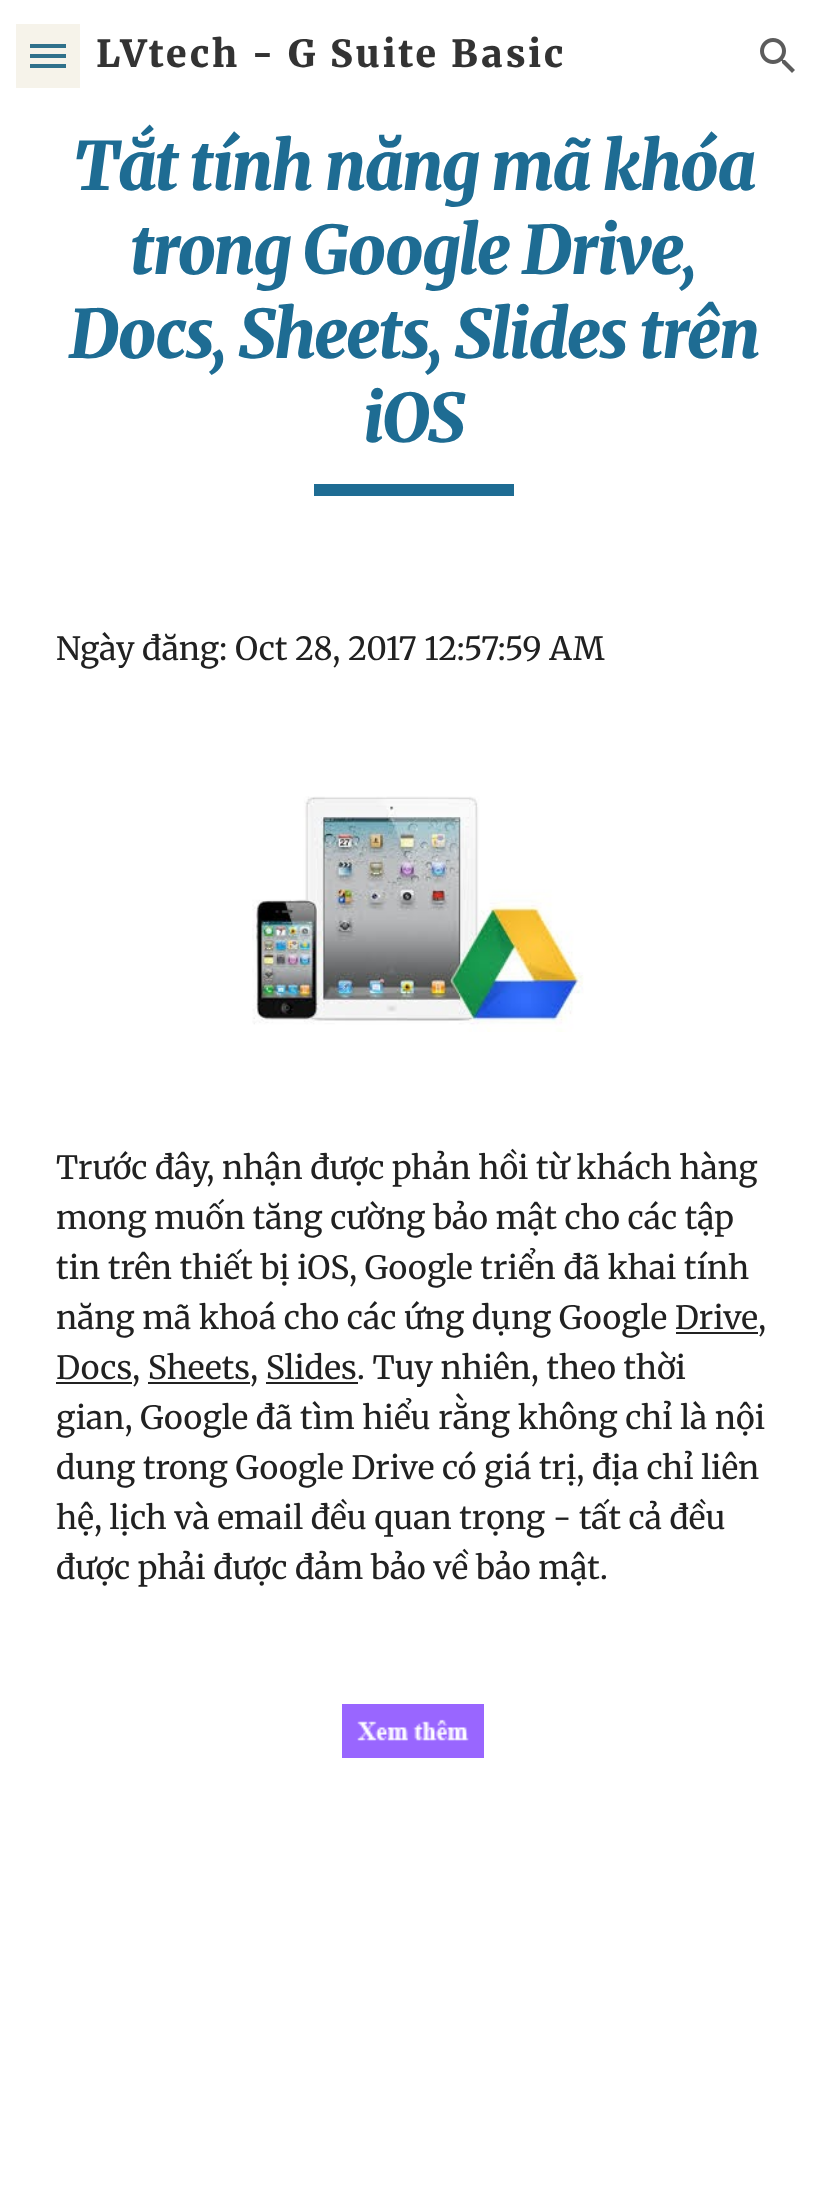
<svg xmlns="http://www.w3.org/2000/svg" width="826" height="2197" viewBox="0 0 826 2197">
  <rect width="100%" height="100%" fill="#fff"/>
  <path d="M30 44h36v4H30z" fill="#1e6c93"/>
  <path d="M30 54h36v4H30z" fill="#1e6c93"/>
  <path d="M30 64h36v4H30z" fill="#1e6c93"/>
  <path d="M16 24h64v64H16z" fill="#b799511f"/>
  <image x="760" y="38" width="35" height="35" href="img/1.png"/>
  <path d="M314 484h200v12H314z" fill="#1e6c93"/>
  <image x="252" y="796" width="332" height="236" href="img/2.png"/>
  <path d="M676 1332h82v2H676z" fill="#212121"/>
  <path d="M56 1382h76v2H56z" fill="#212121"/>
  <path d="M148 1382h102v2H148z" fill="#212121"/>
  <path d="M266 1382h92v2H266z" fill="#212121"/>
  <image x="342" y="1704" width="142" height="54" href="img/3.png"/>
  <text x="96" y="67" font-family="Merriweather" font-size="37.3" font-weight="900" letter-spacing="3" fill="#333">LVtech - G Suite Basic</text>
  <g font-family="Merriweather" font-size="66.75" font-weight="900" font-style="italic" letter-spacing="-1.8" fill="#1e6c93">
    <text x="73" y="190">Tắt tính năng mã khóa</text>
    <text x="130" y="274">trong Google Drive,</text>
    <text x="69" y="358">Docs, Sheets, Slides trên</text>
    <text x="363" y="442">iOS</text>
  </g>
  <g font-family="Merriweather" font-size="32" fill="#212121">
    <text x="56" y="660">Ngày đăng: Oct 28, 2017 12:57:59 AM</text>
    <text x="56" y="1179">Trước đây, nhận được phản hồi từ khách hàng</text>
    <text x="56" y="1229">mong muốn tăng cường bảo mật cho các tập</text>
    <text x="56" y="1279">tin trên thiết bị iOS, Google triển đã khai tính</text>
    <text x="56" y="1329">năng mã khoá cho các ứng dụng Google Drive</text>
    <text x="758" y="1329">,</text>
    <text x="56" y="1379">Docs, Sheets, Slides. Tuy nhiên, theo thời</text>
    <text x="56" y="1429">gian, Google đã tìm hiểu rằng không chỉ là nội</text>
    <text x="56" y="1479">dung trong Google Drive có giá trị, địa chỉ liên</text>
    <text x="56" y="1529">hệ, lịch và email đều quan trọng - tất cả đều</text>
    <text x="56" y="1579">được phải được đảm bảo về bảo mật.</text>
  </g>
</svg>
